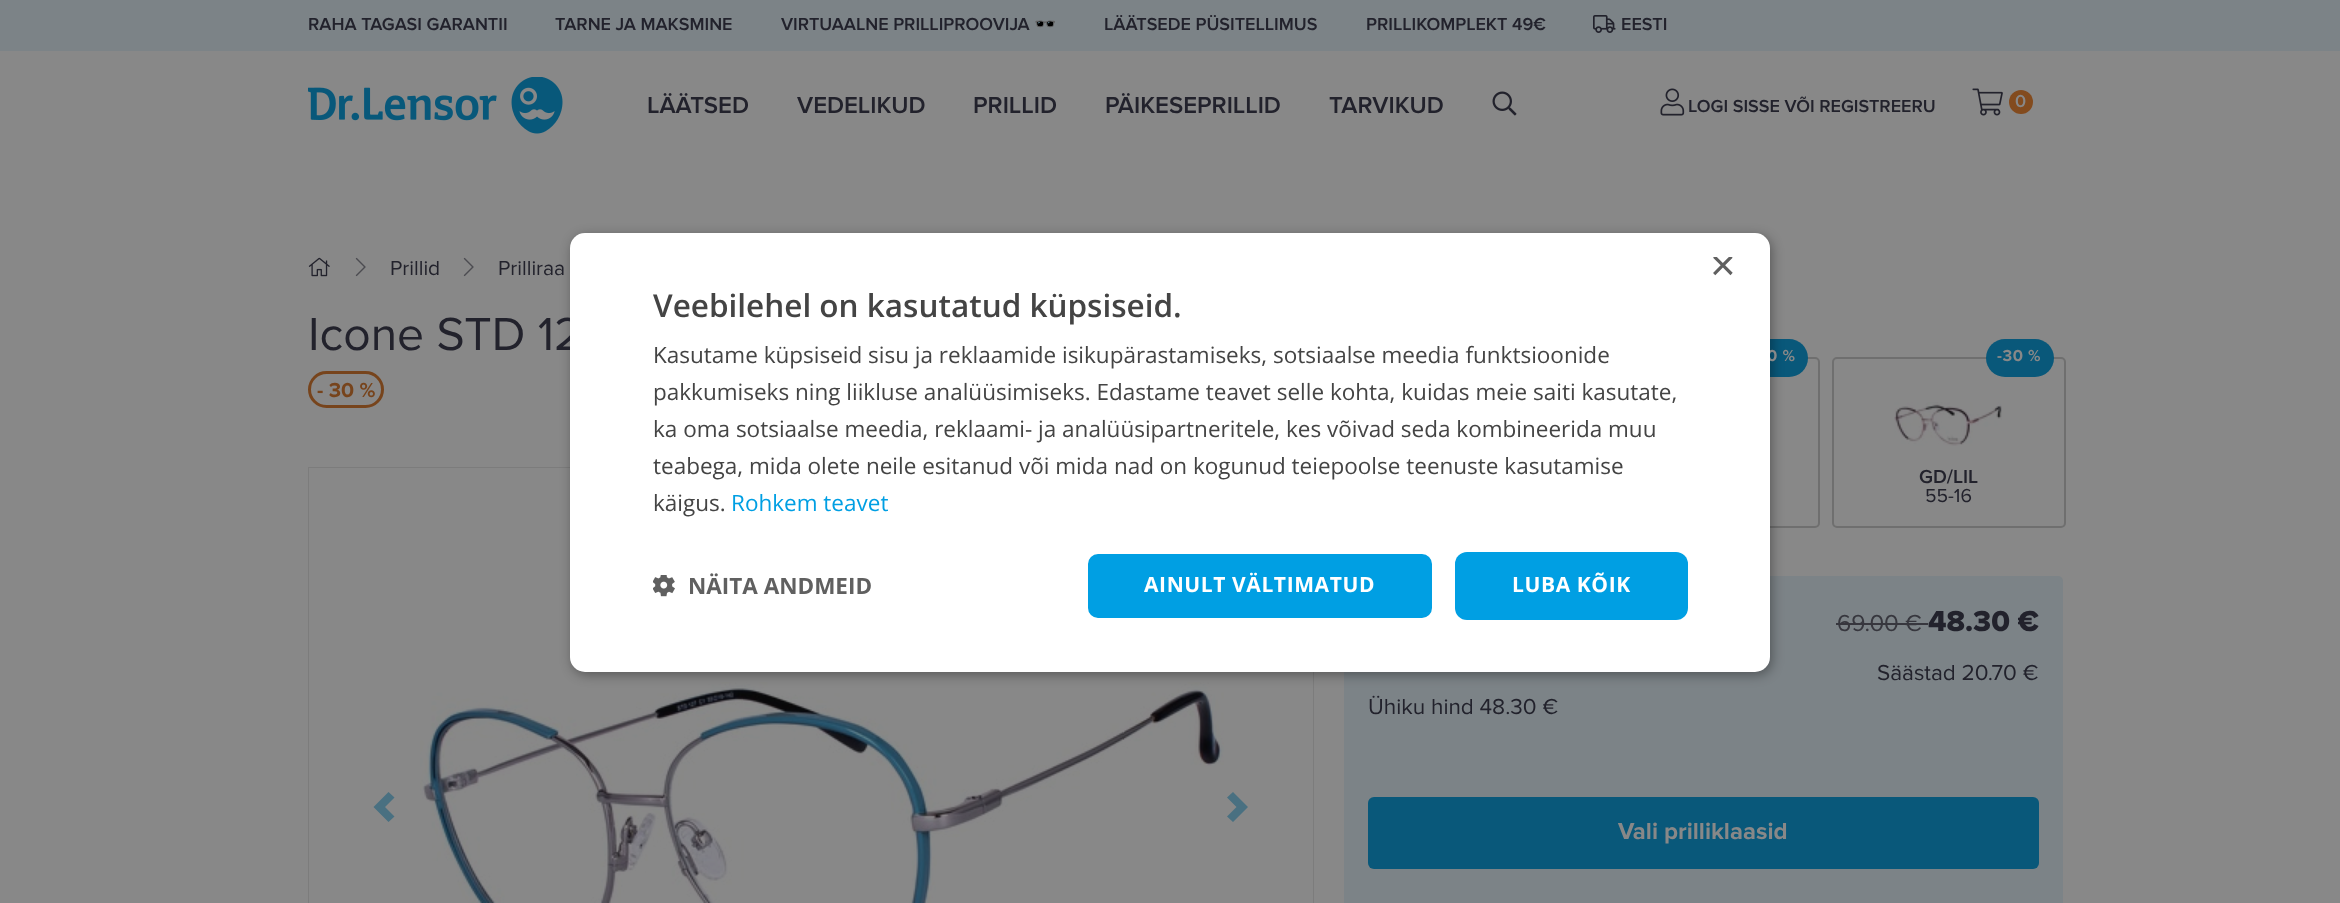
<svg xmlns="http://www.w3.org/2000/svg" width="2340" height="903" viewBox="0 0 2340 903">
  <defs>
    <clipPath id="clip1"><path d="M1710 257h23v22H1710z"/></clipPath>
  </defs>
  <rect width="100%" height="100%" fill="#888"/>
  <path d="M0 0h2340v51H0z" fill="#7c8387"/>
  <image x="1593" y="15" width="23" height="18" href="img/1.png"/>
  <image x="308" y="77" width="255" height="57" href="img/2.png"/>
  <image x="1492" y="91" width="25" height="25" href="img/3.png"/>
  <image x="1660" y="88" width="25" height="28" href="img/4.png"/>
  <image x="1972" y="88" width="31" height="28" href="img/5.png"/>
  <circle cx="2021" cy="102" r="12" fill="#834b1e"/>
  <path d="M309 468h1004v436H309z" fill="none" stroke="#7c7c7c" stroke-width="2"/>
  <path d="M309 468h1004v435H309z" fill="#888"/>
  <image x="420" y="682" width="804" height="221" href="img/9.png"/>
  <rect x="1588" y="358" width="231" height="169" rx="4" fill="none" stroke="#6f6f6f" stroke-width="2"/>
  <rect x="1740" y="339" width="68" height="38" rx="19" fill="#09587a"/>
  <rect x="1344" y="576" width="719" height="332" rx="5" fill="#7c8387"/>
  <rect x="572" y="236" width="1200" height="439" rx="15" fill="#00000059" filter="blur(6px)"/>
  <image x="308" y="257" width="22" height="20" href="img/7.png"/>
  <image x="355" y="257" width="11" height="20" href="img/8.png"/>
  <image x="463" y="257" width="11" height="20" href="img/8.png"/>
  <rect x="309.5" y="372.5" width="73" height="34" rx="17" fill="none" stroke="#77441c" stroke-width="3"/>
  <path d="M388.5 792L373.5 807L388.5 822L394.5 816.5L385 807L394.5 797.5Z" fill="#497081"/>
  <path d="M1233 792L1227 797.5L1236.5 807L1227 816.5L1233 822L1248 807Z" fill="#497081"/>
  <rect x="1833" y="358" width="232" height="169" rx="4" fill="none" stroke="#6f6f6f" stroke-width="2"/>
  <rect x="1986" y="339" width="68" height="38" rx="19" fill="#09587a"/>
  <image x="1894" y="402" width="108" height="44" href="img/10.png"/>
  <path d="M1836 623h92v2H1836z" fill="#37373e"/>
  <rect x="1368" y="797" width="671" height="72" rx="6" fill="#09587a"/>
  <g font-family="Proxima Nova" font-size="18" font-weight="600" fill="#22222c">
    <text x="308" y="30">RAHA TAGASI GARANTII</text>
    <text x="555" y="30">TARNE JA MAKSMINE</text>
    <text x="781" y="30">VIRTUAALNE PRILLIPROOVIJA</text>
  </g>
  <text x="1034" y="30" font-family="Noto Color Emoji" font-size="18" font-weight="bold" fill="#22222c">🕶️</text>
  <g font-family="Proxima Nova" font-size="18" font-weight="600" fill="#22222c">
    <text x="1104" y="30">LÄÄTSEDE PÜSITELLIMUS</text>
    <text x="1366" y="30">PRILLIKOMPLEKT 49€</text>
    <text x="1621" y="30">EESTI</text>
  </g>
  <g font-family="Proxima Nova" font-size="24" font-weight="600" fill="#22222c">
    <text x="647" y="113">LÄÄTSED</text>
    <text x="797" y="113">VEDELIKUD</text>
    <text x="973" y="113">PRILLID</text>
    <text x="1105" y="113">PÄIKESEPRILLID</text>
    <text x="1329" y="113">TARVIKUD</text>
  </g>
  <text x="1688" y="112" font-family="Proxima Nova" font-size="18" font-weight="600" fill="#22222c">LOGI SISSE VÕI REGISTREERU</text>
  <text x="2015" y="107" font-family="Proxima Nova" font-size="18" font-weight="600" fill="#888">0</text>
  <g font-family="Proxima Nova" font-size="21" fill="#22222c">
    <text x="390" y="275">Prillid</text>
    <text x="498" y="275">Prilliraa</text>
  </g>
  <text x="308" y="350" font-family="Proxima Nova" font-size="48" fill="#22222c">Icone STD 12</text>
  <text x="317" y="397" font-family="Proxima Nova" font-size="21" font-weight="bold" fill="#77441c">- 30 %</text>
  <text x="1767" y="361" font-family="Proxima Nova" font-size="16.5" font-weight="bold" letter-spacing="0.5" fill="#888">0 %</text>
  <rect x="570" y="233" width="1200" height="439" rx="15" fill="#fff"/>
  <g clip-path="url(#clip1)">
    <text x="1710" y="280" font-family="Liberation Sans" font-size="44" fill="#606060">×</text>
  </g>
  <text x="653" y="317" font-family="Open Sans" font-size="31.5" font-weight="600" fill="#444">Veebilehel on kasutatud küpsiseid.</text>
  <image x="653" y="575" width="22" height="22" href="img/6.png"/>
  <text x="688" y="594" font-family="Open Sans" font-size="22.5" font-weight="bold" fill="#606060">NÄITA ANDMEID</text>
  <rect x="1087" y="553" width="346" height="66" rx="11" fill="#009fe3" stroke="#fff" stroke-width="2"/>
  <text x="1144" y="592" font-family="Open Sans" font-size="21" font-weight="bold" letter-spacing="0.6" fill="#fff">AINULT VÄLTIMATUD</text>
  <rect x="1455" y="552" width="233" height="68" rx="12" fill="#009fe3"/>
  <text x="1512" y="592" font-family="Open Sans" font-size="21" font-weight="bold" letter-spacing="0.6" fill="#fff">LUBA KÕIK</text>
  <text x="731" y="511" font-family="Open Sans" font-size="22.5" fill="#009fe3">Rohkem teavet</text>
  <g font-family="Open Sans" font-size="22.5" fill="#444">
    <text x="653" y="511">käigus.</text>
    <text x="653" y="474">teabega, mida olete neile esitanud või mida nad on kogunud teiepoolse teenuste kasutamise</text>
    <text x="653" y="437">ka oma sotsiaalse meedia, reklaami- ja analüüsipartneritele, kes võivad seda kombineerida muu</text>
    <text x="653" y="400">pakkumiseks ning liikluse analüüsimiseks. Edastame teavet selle kohta, kuidas meie saiti kasutate,</text>
    <text x="653" y="363">Kasutame küpsiseid sisu ja reklaamide isikupärastamiseks, sotsiaalse meedia funktsioonide</text>
  </g>
  <text x="1997" y="361" font-family="Proxima Nova" font-size="16.5" font-weight="bold" letter-spacing="0.5" fill="#888">-30 %</text>
  <text x="1919" y="483" font-family="Proxima Nova" font-size="19.5" font-weight="600" fill="#22222c">GD/LIL</text>
  <text x="1925" y="502" font-family="Proxima Nova" font-size="19.5" fill="#22222c">55-16</text>
  <text x="1837" y="631" font-family="Proxima Nova" font-size="24" fill="#37373e">69.00 €</text>
  <text x="1928" y="631" font-family="Proxima Nova" font-size="30" font-weight="800" fill="#22222c">48.30 €</text>
  <g font-family="Proxima Nova" font-size="22.5" fill="#22222c">
    <text x="1877" y="680">Säästad 20.70 €</text>
    <text x="1368" y="714">Ühiku hind 48.30 €</text>
  </g>
  <text x="1618" y="839" font-family="Proxima Nova" font-size="24" font-weight="bold" fill="#888">Vali prilliklaasid</text>
</svg>
